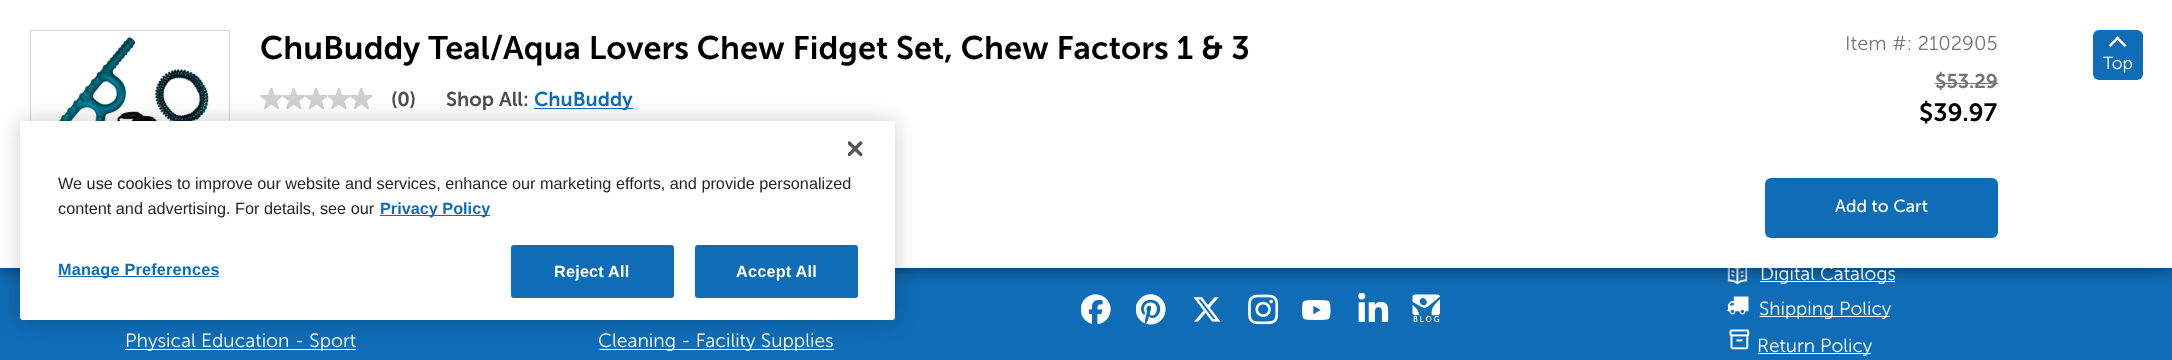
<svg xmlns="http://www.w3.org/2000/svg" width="2172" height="360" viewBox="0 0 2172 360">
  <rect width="100%" height="100%" fill="#0f6cb6"/>
  <image x="1081" y="294" width="30" height="30" href="img/4.png"/>
  <image x="1136" y="294" width="30" height="31" href="img/5.png"/>
  <image x="1248" y="294" width="30" height="31" href="img/7.png"/>
  <image x="1358" y="293" width="31" height="29" href="img/9.png"/>
  <image x="1412" y="294" width="28" height="28" href="img/10.png"/>
  <image x="1727" y="268" width="21" height="17" href="img/11.png"/>
  <path d="M1760 281h135v1H1760z" fill="#fff"/>
  <path d="M0 0h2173v268H0z" fill="#0000008c" filter="blur(9px)"/>
  <path d="M0 0h2172v268H0z" fill="#fff"/>
  <path d="M30.5 30.5h199v199H30.5z" fill="none" stroke="#d3d3d3"/>
  <image x="51" y="37" width="158" height="84" href="img/1.png"/>
  <image x="260" y="88" width="23" height="21" href="img/2.png"/>
  <image x="283" y="88" width="22" height="21" href="img/3.png"/>
  <image x="305" y="88" width="23" height="21" href="img/2.png"/>
  <image x="328" y="88" width="22" height="21" href="img/3.png"/>
  <image x="350" y="88" width="23" height="21" href="img/2.png"/>
  <path d="M534 108h99v1H534z" fill="#0f6cb6"/>
  <path d="M1935 83h63v1H1935z" fill="#757575"/>
  <rect x="1765" y="178" width="233" height="60" rx="6" fill="#0f6cb6"/>
  <rect x="2093" y="30" width="50" height="50" rx="6" fill="#0f6cb6"/>
  <path d="M2108.5 45.5L2117.5 36.5L2119.5 38L2110.5 47Z" fill="#fff"/>
  <path d="M2115.5 38L2117.5 36.5L2126.5 45.5L2124.5 47Z" fill="#fff"/>
  <image x="1193" y="297" width="28" height="25" href="img/6.png"/>
  <image x="1302" y="300" width="29" height="20" href="img/8.png"/>
  <image x="1727" y="296" width="22" height="19" href="img/12.png"/>
  <path d="M1759 316h131v1H1759z" fill="#fff"/>
  <image x="1729" y="329" width="21" height="21" href="img/13.png"/>
  <path d="M1758 353h113v1H1758z" fill="#fff"/>
  <path d="M125 349h231v1H125z" fill="#fff"/>
  <path d="M599 349h235v1H599z" fill="#fff"/>
  <rect x="20" y="121" width="875" height="199" rx="3" fill="#00000033" filter="blur(11px)"/>
  <rect x="20" y="121" width="875" height="199" rx="3" fill="#fff"/>
  <image x="848" y="141" width="15" height="15" href="img/14.png"/>
  <path d="M380 215h110v1H380z" fill="#0f6cb6"/>
  <path d="M58 276h161v1H58z" fill="#0f6cb6"/>
  <rect x="511.5" y="245.5" width="162" height="52" rx="2" fill="#0f6cb6" stroke="#0f6cb6"/>
  <rect x="695.5" y="245.5" width="162" height="52" rx="2" fill="#0f6cb6" stroke="#0f6cb6"/>
  <text x="260" y="59" font-family="'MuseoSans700'" font-size="32.5" fill="#000">ChuBuddy Teal/Aqua Lovers Chew Fidget Set, Chew Factors 1 &amp; 3</text>
  <g font-family="'MuseoSans700'" font-size="20" fill="#4d4d4d">
    <text x="391" y="106">(0)</text>
    <text x="446" y="106">Shop All:</text>
  </g>
  <text x="534" y="106" font-family="'MuseoSans700'" font-size="20" fill="#0f6cb6">ChuBuddy</text>
  <text x="1845" y="50" font-family="'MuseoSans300'" font-size="20" fill="#757575">Item #: 2102905</text>
  <text x="1935" y="88" font-family="'MuseoSans700'" font-size="20" fill="#757575">$53.29</text>
  <text x="1919" y="121" font-family="'MuseoSans700'" font-size="25" fill="#000">$39.97</text>
  <text x="1835" y="212" font-family="'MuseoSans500'" font-size="17.5" fill="#fff">Add to Cart</text>
  <text x="2103" y="69" font-family="'MuseoSans300'" font-size="17.5" fill="#fff">Top</text>
  <g font-family="'MuseoSans300'" font-size="19" fill="#fff">
    <text x="1760" y="280">Digital Catalogs</text>
    <text x="1759" y="315">Shipping Policy</text>
    <text x="1757" y="352">Return Policy</text>
  </g>
  <g font-family="'MuseoSans300'" font-size="19.25" fill="#fff">
    <text x="125" y="347">Physical Education - Sport</text>
    <text x="598" y="347">Cleaning - Facility Supplies</text>
  </g>
  <g font-family="Liberation Sans" font-size="16.25" fill="#252525">
    <text x="58" y="189">We use cookies to improve our website and services, enhance our marketing efforts, and provide personalized</text>
    <text x="58" y="214">content and advertising. For details, see our</text>
  </g>
  <text x="380" y="214" font-family="Liberation Sans" font-size="16.25" font-weight="bold" fill="#0f6cb6">Privacy Policy</text>
  <text x="58" y="275" font-family="Liberation Sans" font-size="16.25" font-weight="bold" letter-spacing="0.2" fill="#0f6cb6">Manage Preferences</text>
  <g font-family="Liberation Sans" font-size="16.25" font-weight="bold" letter-spacing="0.2" fill="#fff">
    <text x="554" y="277">Reject All</text>
    <text x="736" y="277">Accept All</text>
  </g>
</svg>
